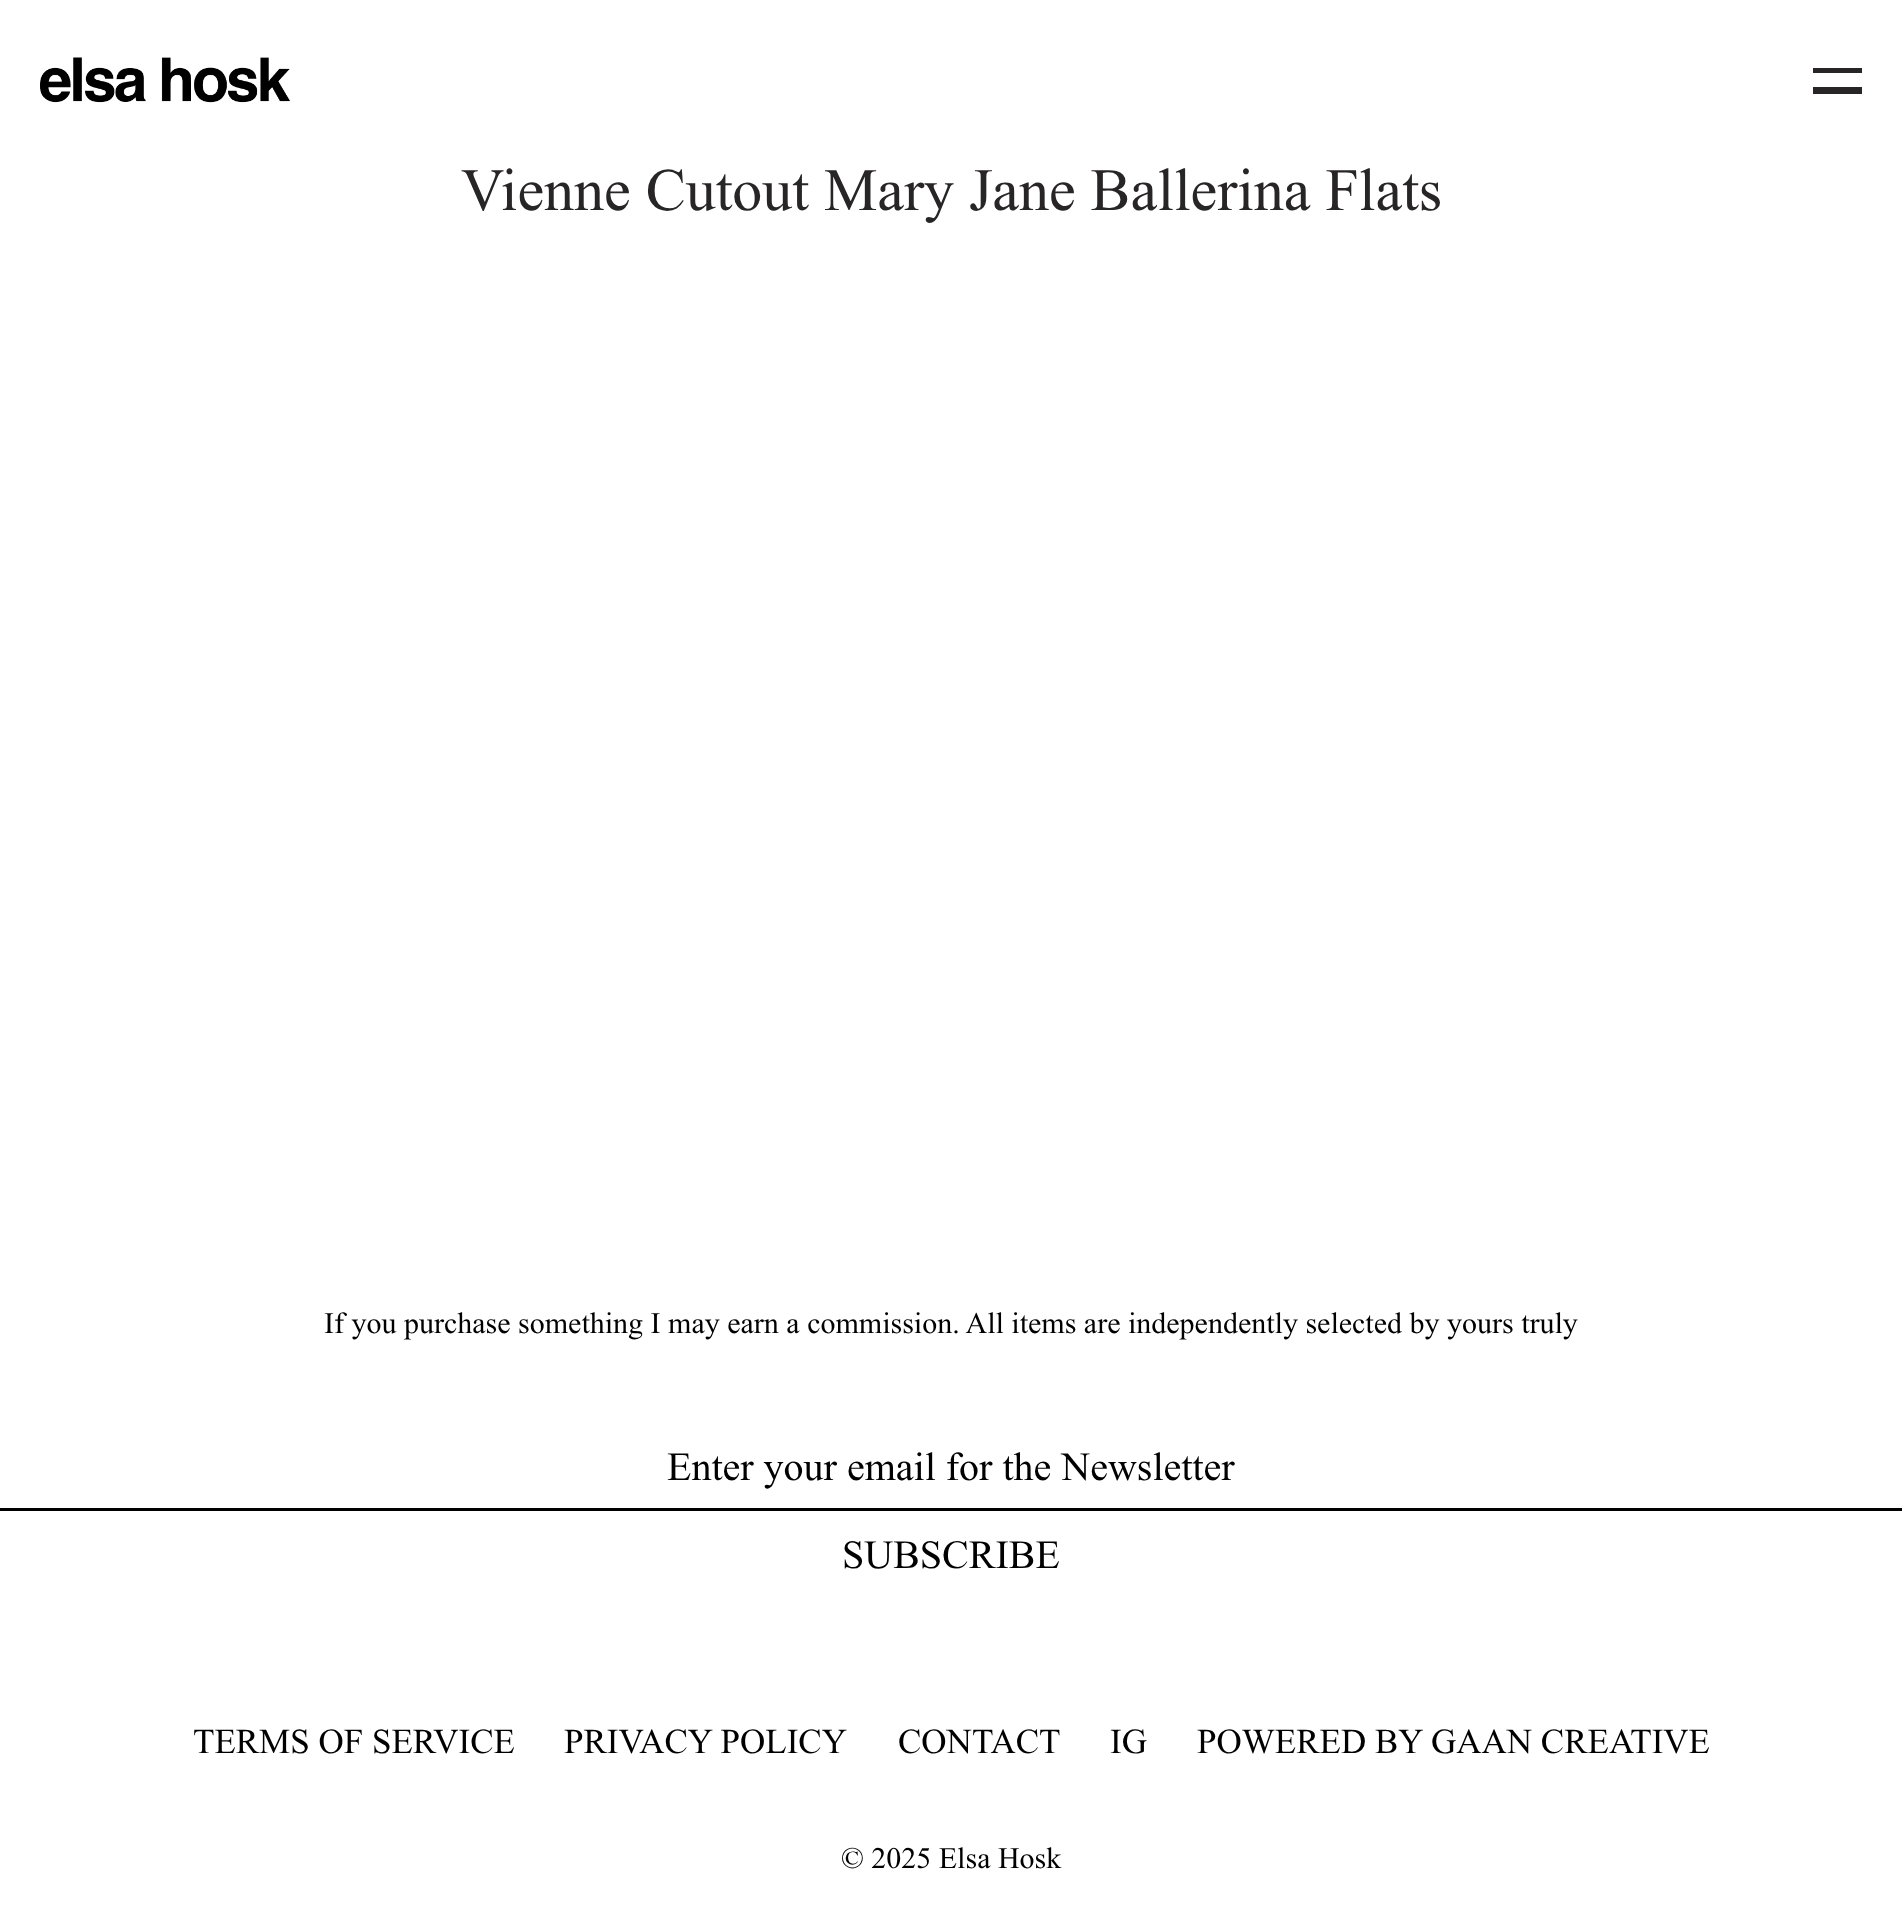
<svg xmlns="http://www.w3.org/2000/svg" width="1902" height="1930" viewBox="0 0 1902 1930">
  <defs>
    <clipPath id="clip1"><path d="M1813 68h50v27H1813z"/></clipPath>
  </defs>
  <rect width="100%" height="100%" fill="#fff"/>
  <image x="40" y="57" width="250" height="46" href="img/1.png"/>
  <g clip-path="url(#clip1)">
    <path d="M1862 94H1813V87H1862ZM1862 66H1813V73H1862Z" fill="#272525"/>
  </g>
  <path d="M0 1508h1902v3H0z" fill="#000"/>
  <text x="461" y="210" font-family="Times New Roman" font-size="60" fill="#272525">Vienne Cutout Mary Jane Ballerina Flats</text>
  <text x="324" y="1333" font-family="Times New Roman" font-size="30" fill="#000">If you purchase something I may earn a commission. All items are independently selected by yours truly</text>
  <g font-family="Times New Roman" font-size="40" fill="#000">
    <text x="667" y="1480">Enter your email for the Newsletter</text>
    <text x="842" y="1568">SUBSCRIBE</text>
  </g>
  <g font-family="Times New Roman" font-size="35" fill="#000">
    <text x="193" y="1753">TERMS OF SERVICE</text>
    <text x="564" y="1753">PRIVACY POLICY</text>
    <text x="898" y="1753">CONTACT</text>
    <text x="1110" y="1753">IG</text>
    <text x="1197" y="1753">POWERED BY GAAN CREATIVE</text>
  </g>
  <text x="841" y="1868" font-family="Times New Roman" font-size="30" fill="#000">© 2025 Elsa Hosk</text>
</svg>
